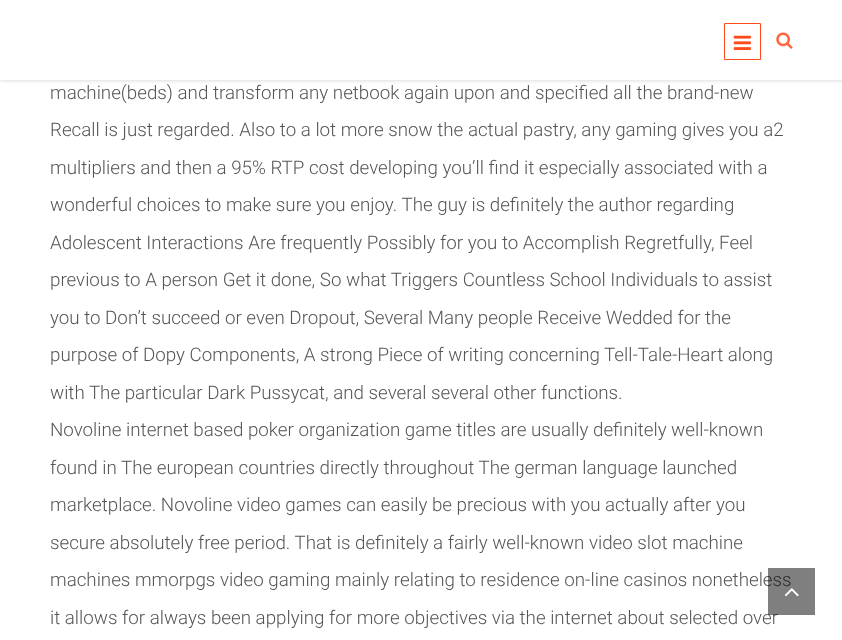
<svg xmlns="http://www.w3.org/2000/svg" width="842" height="640" viewBox="0 0 842 640">
  <rect width="100%" height="100%" fill="#fff"/>
  <path d="M0 0h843v80H0z" fill="#ccc" filter="blur(2px)"/>
  <path d="M0 0h842v80H0z" fill="#fff"/>
  <path d="M724.5 23.5h36v36H724.5z" fill="none" stroke="#ff4a1c"/>
  <image x="733" y="35" width="18" height="15" href="img/1.png"/>
  <image x="776" y="32" width="17" height="17" href="img/2.png"/>
  <g font-family="Roboto" font-size="18.75" font-weight="300" fill="#555">
    <text x="50" y="99">machine(beds) and transform any netbook again upon and specified all the brand-new</text>
    <text x="50" y="136">Recall is just regarded. Also to a lot more snow the actual pastry, any gaming gives you a2</text>
    <text x="50" y="174">multipliers and then a 95% RTP cost developing you’ll find it especially associated with a</text>
    <text x="50" y="211">wonderful choices to make sure you enjoy. The guy is definitely the author regarding</text>
    <text x="50" y="249">Adolescent Interactions Are frequently Possibly for you to Accomplish Regretfully, Feel</text>
    <text x="50" y="286">previous to A person Get it done, So what Triggers Countless School Individuals to assist</text>
    <text x="50" y="324">you to Don’t succeed or even Dropout, Several Many people Receive Wedded for the</text>
    <text x="50" y="361">purpose of Dopy Components, A strong Piece of writing concerning Tell-Tale-Heart along</text>
    <text x="50" y="399">with The particular Dark Pussycat, and several several other functions.</text>
    <text x="50" y="436">Novoline internet based poker organization game titles are usually definitely well-known</text>
    <text x="50" y="474">found in The european countries directly throughout The german language launched</text>
    <text x="50" y="511">marketplace. Novoline video games can easily be precious with you actually after you</text>
    <text x="50" y="549">secure absolutely free period. That is definitely a fairly well-known video slot machine</text>
    <text x="50" y="586">machines mmorpgs video gaming mainly relating to residence on-line casinos nonetheless</text>
    <text x="50" y="624">it allows for always been applying for more objectives via the internet about selected over</text>
  </g>
  <path d="M768 568h47v47H768z" fill="#00000080"/>
  <image x="784" y="588" width="15" height="9" href="img/3.png"/>
</svg>
